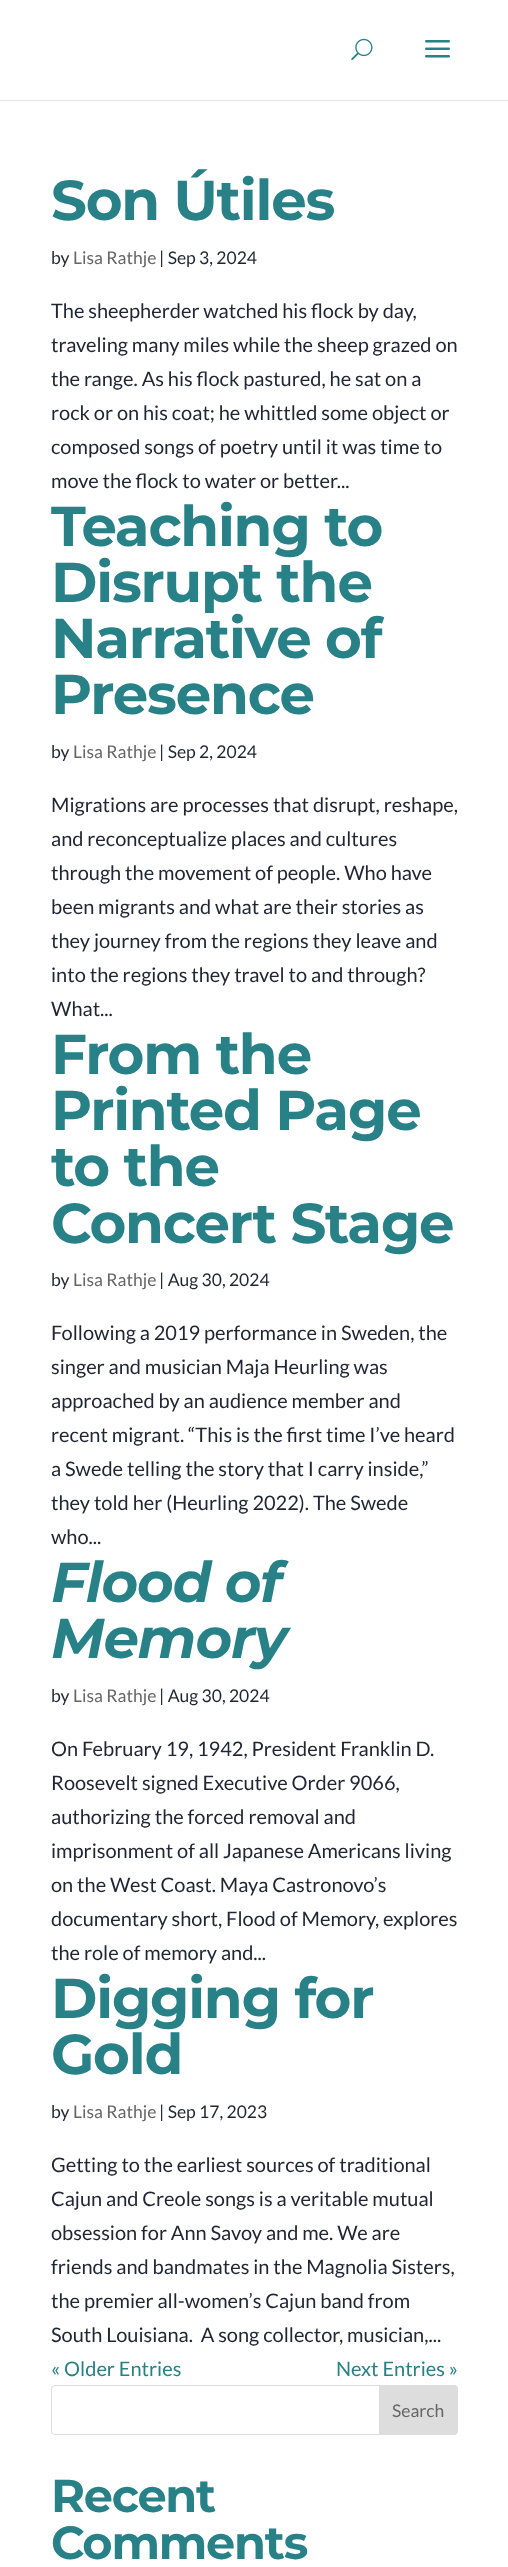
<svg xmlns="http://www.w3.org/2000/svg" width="508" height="2567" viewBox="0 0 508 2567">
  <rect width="100%" height="100%" fill="#fff"/>
  <path d="M0 100V101H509V1V100Z" fill="#e6e6e6"/>
  <image x="351" y="38" width="22" height="23" href="img/1.png"/>
  <image x="425" y="40" width="25" height="18" href="img/2.png"/>
  <rect x="51.5" y="2385.5" width="406" height="49" rx="3.5" fill="none" stroke="#ddd"/>
  <path d="M379.5 2385.5H454C456 2385.5 457.5 2387 457.5 2389V2431C457.5 2433 456 2434.5 454 2434.5H379.5Z" fill="#ddd" stroke="#ddd"/>
  <text x="51" y="220" font-family="Montserrat" font-size="56.25" font-weight="100" letter-spacing="-1.25" fill="#278187">Son Útiles</text>
  <text x="51" y="264" font-family="Lato" font-size="17.5" fill="#1f2532">by</text>
  <text x="73" y="264" font-family="Lato" font-size="17.5" fill="#666">Lisa Rathje</text>
  <text x="159" y="264" font-family="Lato" font-size="17.5" fill="#1f2532">| Sep 3, 2024</text>
  <g font-family="Lato" font-size="20" fill="#1f2532">
    <text x="51" y="318">The sheepherder watched his flock by day,</text>
    <text x="51" y="352">traveling many miles while the sheep grazed on</text>
    <text x="51" y="386">the range. As his flock pastured, he sat on a</text>
    <text x="51" y="420">rock or on his coat; he whittled some object or</text>
    <text x="51" y="454">composed songs of poetry until it was time to</text>
    <text x="51" y="488">move the flock to water or better...</text>
  </g>
  <g font-family="Montserrat" font-size="56.25" font-weight="100" letter-spacing="-1.25" fill="#278187">
    <text x="51" y="546">Teaching to</text>
    <text x="51" y="602">Disrupt the</text>
    <text x="51" y="658">Narrative of</text>
    <text x="51" y="714">Presence</text>
  </g>
  <text x="51" y="758" font-family="Lato" font-size="17.5" fill="#1f2532">by</text>
  <text x="73" y="758" font-family="Lato" font-size="17.5" fill="#666">Lisa Rathje</text>
  <text x="159" y="758" font-family="Lato" font-size="17.5" fill="#1f2532">| Sep 2, 2024</text>
  <g font-family="Lato" font-size="20" fill="#1f2532">
    <text x="51" y="812">Migrations are processes that disrupt, reshape,</text>
    <text x="51" y="846">and reconceptualize places and cultures</text>
    <text x="51" y="880">through the movement of people. Who have</text>
    <text x="51" y="914">been migrants and what are their stories as</text>
    <text x="51" y="948">they journey from the regions they leave and</text>
    <text x="51" y="982">into the regions they travel to and through?</text>
    <text x="51" y="1016">What...</text>
  </g>
  <g font-family="Montserrat" font-size="56.25" font-weight="100" letter-spacing="-1.25" fill="#278187">
    <text x="51" y="1074">From the</text>
    <text x="51" y="1130">Printed Page</text>
    <text x="51" y="1186">to the</text>
    <text x="51" y="1243">Concert Stage</text>
  </g>
  <text x="51" y="1286" font-family="Lato" font-size="17.5" fill="#1f2532">by</text>
  <text x="73" y="1286" font-family="Lato" font-size="17.5" fill="#666">Lisa Rathje</text>
  <text x="159" y="1286" font-family="Lato" font-size="17.5" fill="#1f2532">| Aug 30, 2024</text>
  <g font-family="Lato" font-size="20" fill="#1f2532">
    <text x="51" y="1340">Following a 2019 performance in Sweden, the</text>
    <text x="51" y="1374">singer and musician Maja Heurling was</text>
    <text x="51" y="1408">approached by an audience member and</text>
    <text x="51" y="1442">recent migrant. “This is the first time I’ve heard</text>
    <text x="51" y="1476">a Swede telling the story that I carry inside,”</text>
    <text x="51" y="1510">they told her (Heurling 2022). The Swede</text>
    <text x="51" y="1544">who...</text>
  </g>
  <g font-family="Montserrat" font-size="56.25" font-weight="100" font-style="italic" letter-spacing="-1.25" fill="#278187">
    <text x="51" y="1602">Flood of</text>
    <text x="51" y="1658">Memory</text>
  </g>
  <text x="51" y="1702" font-family="Lato" font-size="17.5" fill="#1f2532">by</text>
  <text x="73" y="1702" font-family="Lato" font-size="17.5" fill="#666">Lisa Rathje</text>
  <text x="159" y="1702" font-family="Lato" font-size="17.5" fill="#1f2532">| Aug 30, 2024</text>
  <g font-family="Lato" font-size="20" fill="#1f2532">
    <text x="51" y="1756">On February 19, 1942, President Franklin D.</text>
    <text x="51" y="1790">Roosevelt signed Executive Order 9066,</text>
    <text x="51" y="1824">authorizing the forced removal and</text>
    <text x="51" y="1858">imprisonment of all Japanese Americans living</text>
    <text x="51" y="1892">on the West Coast. Maya Castronovo’s</text>
    <text x="51" y="1926">documentary short, Flood of Memory, explores</text>
    <text x="51" y="1960">the role of memory and...</text>
  </g>
  <g font-family="Montserrat" font-size="56.25" font-weight="100" letter-spacing="-1.25" fill="#278187">
    <text x="51" y="2018">Digging for</text>
    <text x="51" y="2074">Gold</text>
  </g>
  <text x="51" y="2118" font-family="Lato" font-size="17.5" fill="#1f2532">by</text>
  <text x="73" y="2118" font-family="Lato" font-size="17.5" fill="#666">Lisa Rathje</text>
  <text x="159" y="2118" font-family="Lato" font-size="17.5" fill="#1f2532">| Sep 17, 2023</text>
  <g font-family="Lato" font-size="20" fill="#1f2532">
    <text x="51" y="2172">Getting to the earliest sources of traditional</text>
    <text x="51" y="2206">Cajun and Creole songs is a veritable mutual</text>
    <text x="51" y="2240">obsession for Ann Savoy and me. We are</text>
    <text x="51" y="2274">friends and bandmates in the Magnolia Sisters,</text>
    <text x="51" y="2308">the premier all-women’s Cajun band from</text>
    <text x="51" y="2342" xml:space="preserve">South Louisiana.  A song collector, musician,...</text>
  </g>
  <g font-family="Lato" font-size="20" fill="#278187">
    <text x="51" y="2376">« Older Entries</text>
    <text x="336" y="2376">Next Entries »</text>
  </g>
  <text x="392" y="2417" font-family="Lato" font-size="17.5" fill="#666">Search</text>
  <g font-family="Montserrat" font-size="46.25" font-weight="100" letter-spacing="-1.25" fill="#278187">
    <text x="51" y="2512">Recent</text>
    <text x="51" y="2559">Comments</text>
  </g>
</svg>
